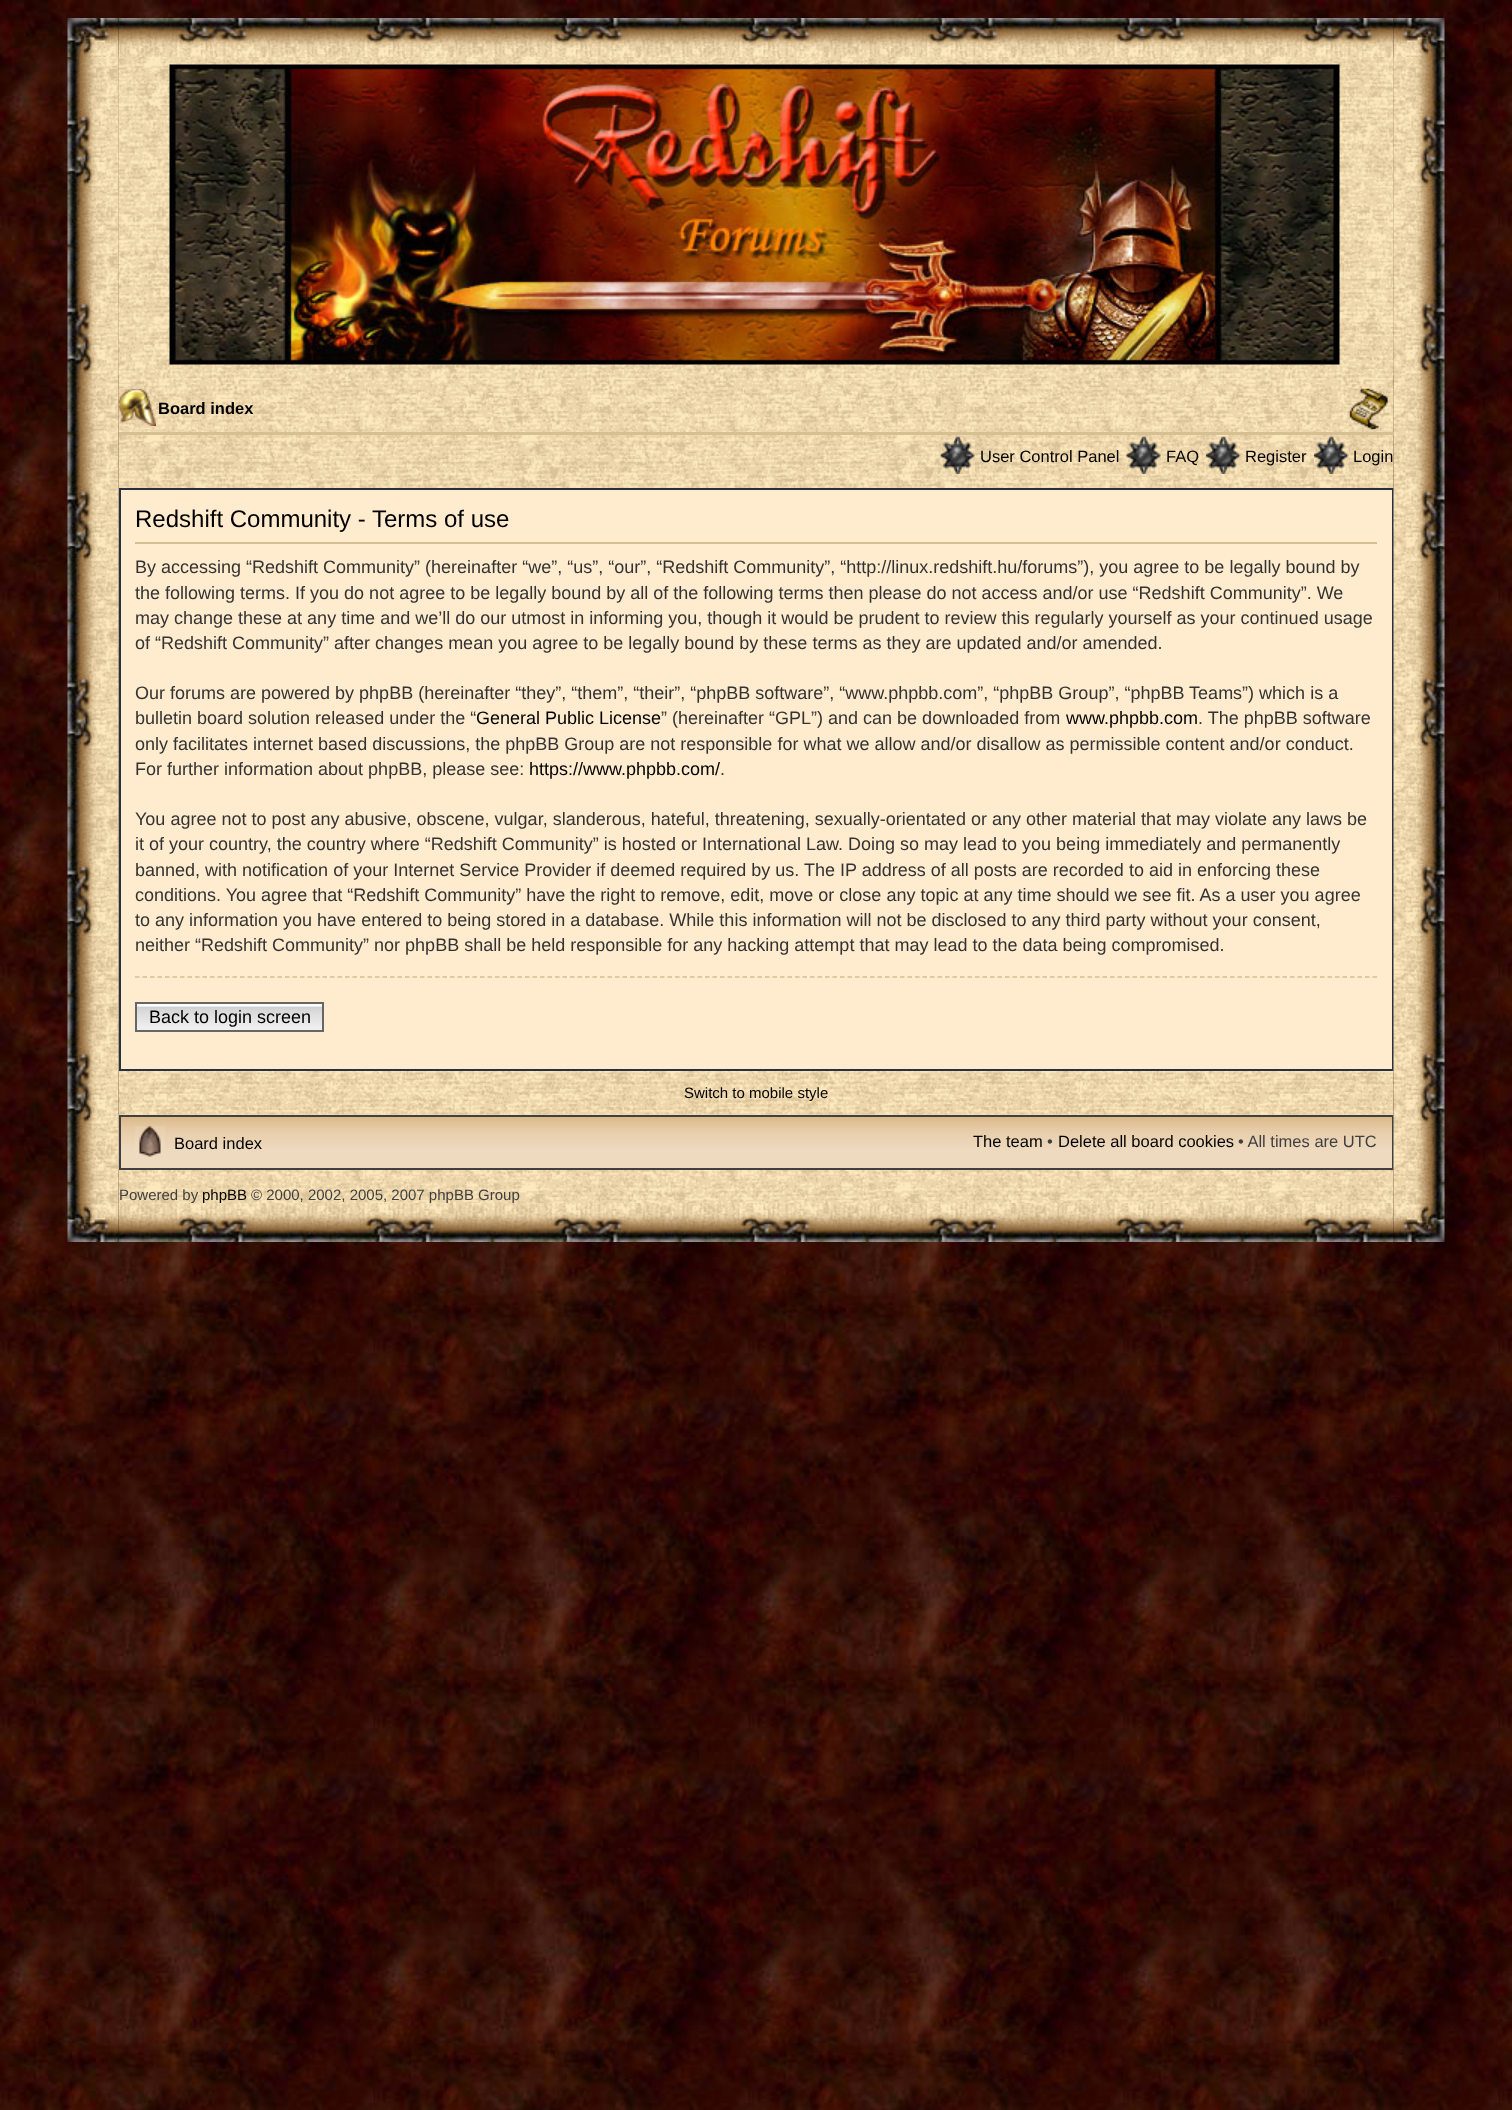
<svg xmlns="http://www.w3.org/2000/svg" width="1512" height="2110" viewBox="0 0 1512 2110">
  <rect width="100%" height="100%" fill="#fff"/>
  <image x="0" y="1277" width="1512" height="833" href="img/1.png"/>
  <image x="0" y="0" width="1512" height="1277" href="img/2.png"/>
  <image x="67" y="18" width="52" height="39" href="img/3.png"/>
  <image x="118" y="18" width="1276" height="39" href="img/4.png"/>
  <image x="1393" y="18" width="52" height="39" href="img/5.png"/>
  <image x="67" y="57" width="52" height="1146" href="img/6.png"/>
  <image x="118" y="57" width="1276" height="1146" href="img/7.png"/>
  <image x="118" y="57" width="1276" height="318" href="img/8.png"/>
  <image x="169" y="64" width="1171" height="301" href="img/9.png"/>
  <path d="M120 489h1273v581H120z" fill="#ffebcd" stroke="#28313f" stroke-width="2"/>
  <image x="118" y="1114" width="1276" height="56" href="img/17.png"/>
  <path d="M120 1116h1273v53H120z" fill="none" stroke="#404040" stroke-width="2"/>
  <image x="1393" y="57" width="52" height="1146" href="img/19.png"/>
  <path d="M119 432h1275v3H119z" fill="#d5bf93"/>
  <image x="118" y="388" width="38" height="38" href="img/10.png"/>
  <image x="1344" y="388" width="50" height="43" href="img/11.png"/>
  <image x="940" y="436" width="35" height="38" href="img/12.png"/>
  <image x="1126" y="436" width="35" height="38" href="img/13.png"/>
  <image x="1206" y="436" width="35" height="38" href="img/14.png"/>
  <image x="1314" y="436" width="35" height="38" href="img/15.png"/>
  <path d="M135 542h1242v2H135z" fill="#d5bf93"/>
  <path d="M135 977H1377" fill="none" stroke="#d5bf93" stroke-width="1.5" stroke-dasharray="4.5 3"/>
  <image x="137" y="1005" width="185" height="25" href="img/16.png"/>
  <path d="M137 1004h185v1H137z" fill="#fafafa"/>
  <path d="M136 1003h187v28H136z" fill="none" stroke="#666" stroke-width="2"/>
  <image x="135" y="1126" width="30" height="31" href="img/18.png"/>
  <image x="67" y="1203" width="52" height="39" href="img/20.png"/>
  <image x="118" y="1203" width="1276" height="39" href="img/21.png"/>
  <image x="1393" y="1203" width="52" height="39" href="img/22.png"/>
  <text x="158" y="414" font-family="Liberation Sans" font-size="16.5" font-weight="bold" fill="#000">Board index</text>
  <g font-family="Liberation Sans" font-size="16.5" fill="#000">
    <text x="980" y="462">User Control Panel</text>
    <text x="1166" y="462">FAQ</text>
    <text x="1245" y="462">Register</text>
    <text x="1353" y="462">Login</text>
  </g>
  <text x="135" y="527" font-family="Liberation Sans" font-size="24" fill="#000">Redshift Community - Terms of use</text>
  <g font-family="Liberation Sans" font-size="18" fill="#333">
    <text x="135" y="573">By accessing “Redshift Community” (hereinafter “we”, “us”, “our”, “Redshift Community”, “http://linux.redshift.hu/forums”), you agree to be legally bound by</text>
    <text x="135" y="599">the following terms. If you do not agree to be legally bound by all of the following terms then please do not access and/or use “Redshift Community”. We</text>
    <text x="135" y="624">may change these at any time and we’ll do our utmost in informing you, though it would be prudent to review this regularly yourself as your continued usage</text>
    <text x="135" y="649">of “Redshift Community” after changes mean you agree to be legally bound by these terms as they are updated and/or amended.</text>
    <text x="135" y="699">Our forums are powered by phpBB (hereinafter “they”, “them”, “their”, “phpBB software”, “www.phpbb.com”, “phpBB Group”, “phpBB Teams”) which is a</text>
    <text x="135" y="724">bulletin board solution released under the “</text>
  </g>
  <text x="476" y="724" font-family="Liberation Sans" font-size="18" fill="#000">General Public License</text>
  <text x="661" y="724" font-family="Liberation Sans" font-size="18" fill="#333">” (hereinafter “GPL”) and can be downloaded from</text>
  <text x="1066" y="724" font-family="Liberation Sans" font-size="18" fill="#000">www.phpbb.com</text>
  <g font-family="Liberation Sans" font-size="18" fill="#333">
    <text x="1198" y="724">. The phpBB software</text>
    <text x="135" y="750">only facilitates internet based discussions, the phpBB Group are not responsible for what we allow and/or disallow as permissible content and/or conduct.</text>
    <text x="135" y="775">For further information about phpBB, please see:</text>
  </g>
  <text x="529" y="775" font-family="Liberation Sans" font-size="18" fill="#000">https://www.phpbb.com/</text>
  <g font-family="Liberation Sans" font-size="18" fill="#333">
    <text x="720" y="775">.</text>
    <text x="135" y="825">You agree not to post any abusive, obscene, vulgar, slanderous, hateful, threatening, sexually-orientated or any other material that may violate any laws be</text>
    <text x="135" y="850">it of your country, the country where “Redshift Community” is hosted or International Law. Doing so may lead to you being immediately and permanently</text>
    <text x="135" y="876">banned, with notification of your Internet Service Provider if deemed required by us. The IP address of all posts are recorded to aid in enforcing these</text>
    <text x="135" y="901">conditions. You agree that “Redshift Community” have the right to remove, edit, move or close any topic at any time should we see fit. As a user you agree</text>
    <text x="135" y="926">to any information you have entered to being stored in a database. While this information will not be disclosed to any third party without your consent,</text>
    <text x="135" y="951">neither “Redshift Community” nor phpBB shall be held responsible for any hacking attempt that may lead to the data being compromised.</text>
  </g>
  <text x="149" y="1023" font-family="Liberation Sans" font-size="18" fill="#000">Back to login screen</text>
  <text x="684" y="1098" font-family="Liberation Sans" font-size="15" fill="#000">Switch to mobile style</text>
  <g font-family="Liberation Sans" font-size="16.5" fill="#000">
    <text x="174" y="1149">Board index</text>
    <text x="973" y="1147">The team</text>
  </g>
  <text x="1047" y="1147" font-family="Liberation Sans" font-size="16.5" fill="#404040">•</text>
  <text x="1058" y="1147" font-family="Liberation Sans" font-size="16.5" fill="#000">Delete all board cookies</text>
  <text x="1238" y="1147" font-family="Liberation Sans" font-size="16.5" fill="#404040">• All times are UTC</text>
  <text x="119" y="1200" font-family="Liberation Sans" font-size="15" fill="#404040">Powered by</text>
  <text x="202" y="1200" font-family="Liberation Sans" font-size="15" fill="#000">phpBB</text>
  <text x="251" y="1200" font-family="Liberation Sans" font-size="15" fill="#404040">© 2000, 2002, 2005, 2007 phpBB Group</text>
</svg>
